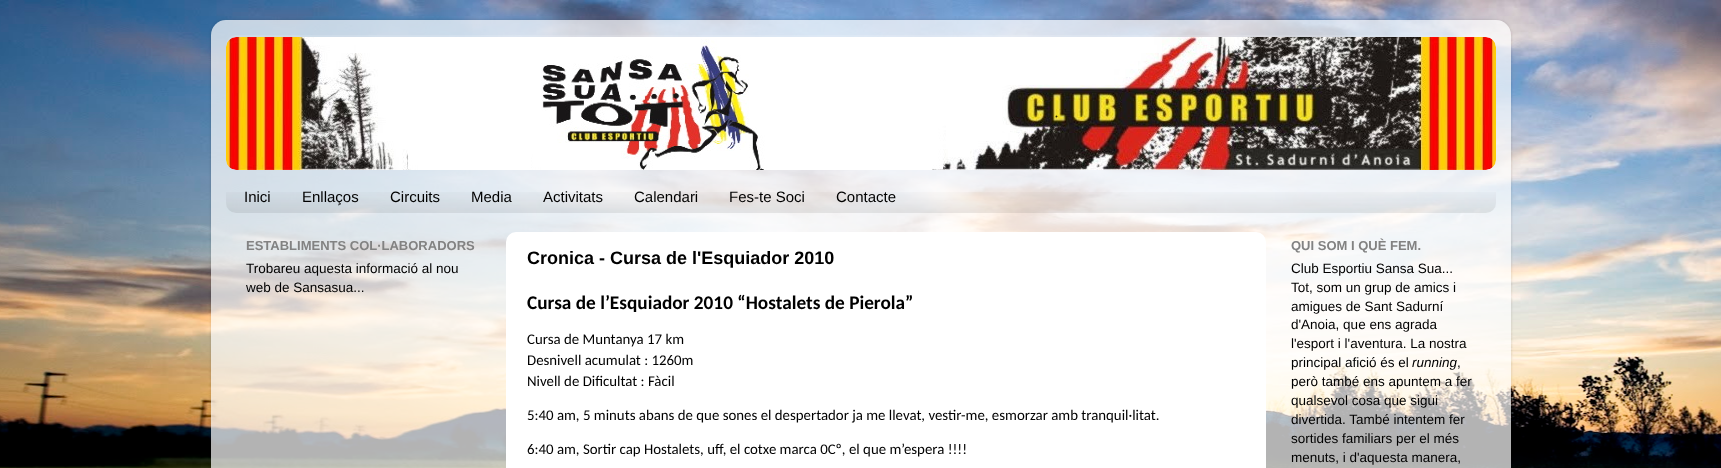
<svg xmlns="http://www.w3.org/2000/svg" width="1721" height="468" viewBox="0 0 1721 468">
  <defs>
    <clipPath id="clip1"><path d="M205 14H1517V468H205ZM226 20H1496C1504.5 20 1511 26.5 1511 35V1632C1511 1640.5 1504.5 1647 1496 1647H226C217.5 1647 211 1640.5 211 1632V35C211 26.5 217.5 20 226 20Z" clip-rule="evenodd"/></clipPath>
  </defs>
  <rect width="100%" height="100%" fill="#fff"/>
  <image x="0" y="0" width="1721" height="468" href="img/1.png"/>
  <g clip-path="url(#clip1)">
    <rect x="211" y="20" width="1300" height="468" rx="15" fill="#00000026" filter="blur(1.5px)"/>
  </g>
  <image x="211" y="20" width="1300" height="448" href="img/2.png"/>
  <image x="226" y="35" width="1270" height="12" href="img/3.png"/>
  <image x="226" y="37" width="1270" height="133" href="img/4.png"/>
  <image x="226" y="192" width="1270" height="21" href="img/5.png"/>
  <rect x="506" y="232" width="760" height="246" rx="10" fill="#fff"/>
  <g font-family="Liberation Sans" font-size="15" fill="#000">
    <text x="244" y="202">Inici</text>
    <text x="302" y="202">Enllaços</text>
    <text x="390" y="202">Circuits</text>
    <text x="471" y="202">Media</text>
    <text x="543" y="202">Activitats</text>
    <text x="634" y="202">Calendari</text>
    <text x="729" y="202">Fes-te Soci</text>
    <text x="836" y="202">Contacte</text>
  </g>
  <text x="246" y="250" font-family="Liberation Sans" font-size="13" font-weight="bold" fill="#828282">ESTABLIMENTS COL·LABORADORS</text>
  <g font-family="Liberation Sans" font-size="13.5" fill="#000">
    <text x="246" y="273">Trobareu aquesta informació al nou</text>
    <text x="246" y="292">web de Sansasua...</text>
  </g>
  <text x="527" y="264" font-family="Liberation Sans" font-size="18" font-weight="bold" fill="#000">Cronica - Cursa de l'Esquiador 2010</text>
  <text x="527" y="309" font-family="Carlito" font-size="19.3" font-weight="bold" fill="#000">Cursa de l’Esquiador 2010 “Hostalets de Pierola”</text>
  <g font-family="Carlito" font-size="14.85" fill="#000">
    <text x="527" y="344">Cursa de Muntanya 17 km</text>
    <text x="527" y="365">Desnivell acumulat : 1260m</text>
    <text x="527" y="386">Nivell de Dificultat : Fàcil</text>
    <text x="527" y="420">5:40 am, 5 minuts abans de que sones el despertador ja me llevat, vestir-me, esmorzar amb tranquil·litat.</text>
    <text x="527" y="454">6:40 am, Sortir cap Hostalets, uff, el cotxe marca 0Cº, el que m’espera !!!!</text>
  </g>
  <text x="1291" y="250" font-family="Liberation Sans" font-size="13" font-weight="bold" fill="#828282">QUI SOM I QUÈ FEM.</text>
  <g font-family="Liberation Sans" font-size="13.5" fill="#000">
    <text x="1291" y="273">Club Esportiu Sansa Sua...</text>
    <text x="1291" y="292">Tot, som un grup de amics i</text>
    <text x="1291" y="311">amigues de Sant Sadurní</text>
    <text x="1291" y="329">d'Anoia, que ens agrada</text>
    <text x="1291" y="348">l'esport i l'aventura. La nostra</text>
    <text x="1291" y="367">principal afició és el</text>
  </g>
  <text x="1412" y="367" font-family="Liberation Sans" font-size="13.5" font-style="italic" fill="#000">running</text>
  <g font-family="Liberation Sans" font-size="13.5" fill="#000">
    <text x="1457" y="367">,</text>
    <text x="1291" y="386">però també ens apuntem a fer</text>
    <text x="1291" y="405">qualsevol cosa que sigui</text>
    <text x="1291" y="424">divertida. També intentem fer</text>
    <text x="1291" y="443">sortides familiars per el més</text>
    <text x="1291" y="462">menuts, i d'aquesta manera,</text>
  </g>
</svg>
